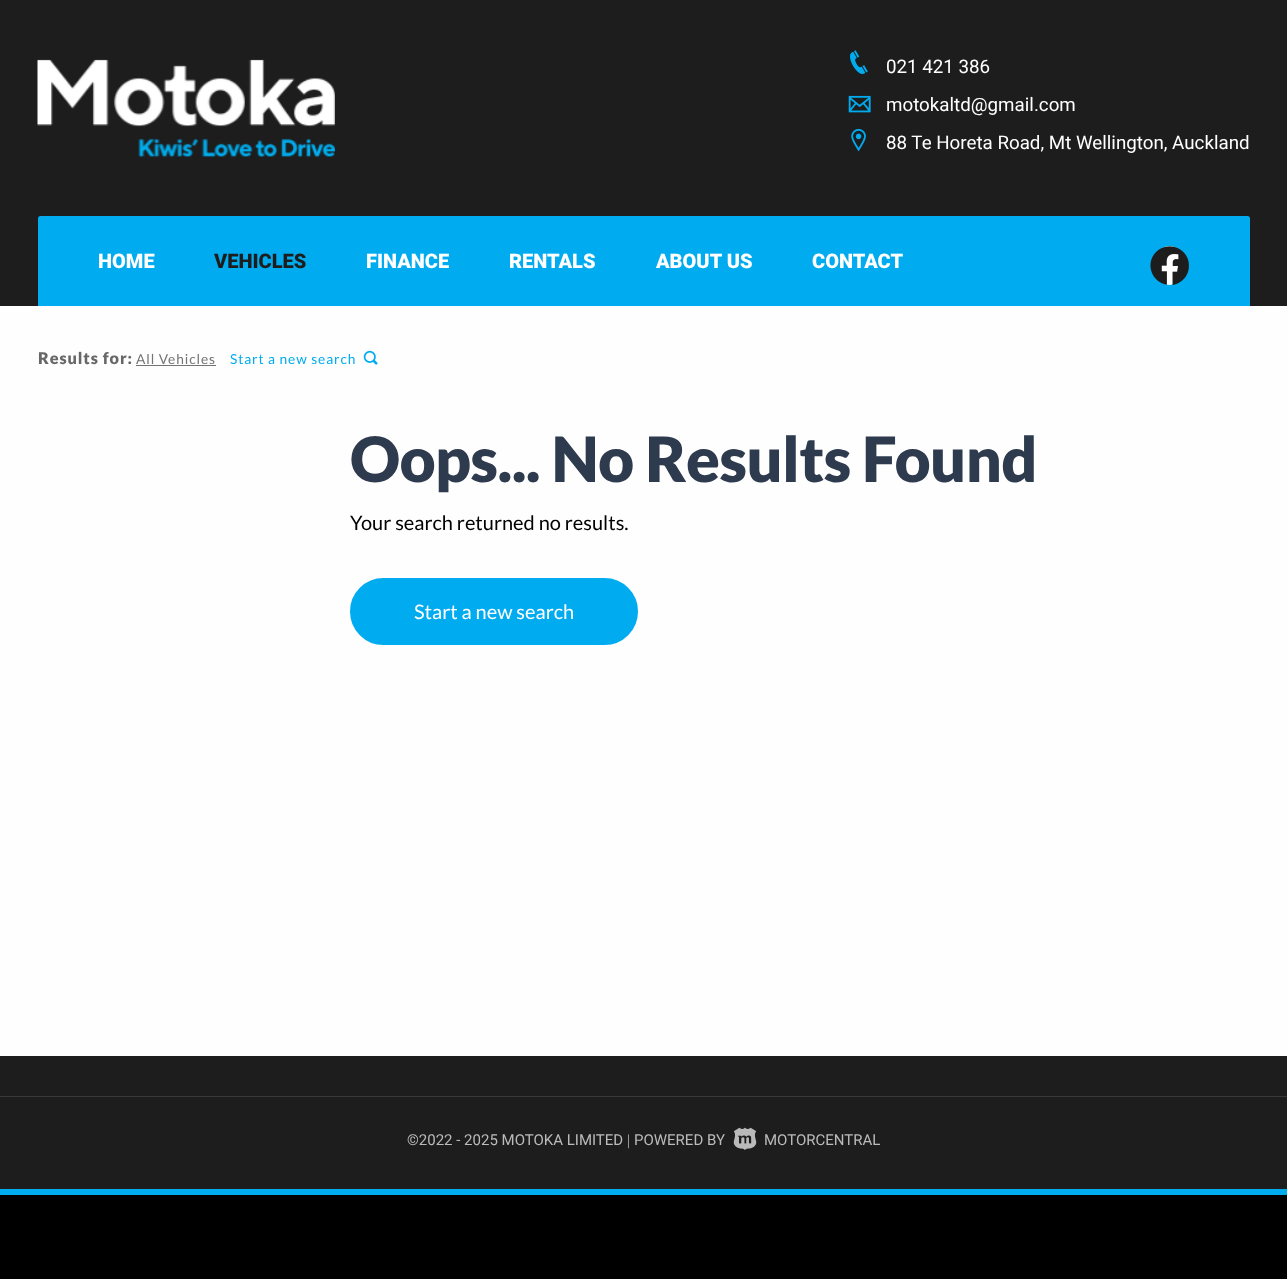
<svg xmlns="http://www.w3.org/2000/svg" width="1287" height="1279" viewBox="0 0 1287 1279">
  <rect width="100%" height="100%" fill="#000"/>
  <path d="M0 306h1287v750H0z" fill="#fefefe"/>
  <path d="M0 0h1287v306H0z" fill="#1d1d1d"/>
  <image x="37" y="59" width="298" height="99" href="img/1.png"/>
  <image x="850" y="50" width="18" height="24" href="img/2.png"/>
  <image x="848" y="95" width="23" height="18" href="img/3.png"/>
  <image x="851" y="128" width="15" height="24" href="img/4.png"/>
  <path d="M40.5 216H1247.5C1249 216 1250 217 1250 218.5V306H38V218.5C38 217 39 216 40.5 216Z" fill="#00acef"/>
  <ellipse cx="1169.5" cy="265.5" rx="15.5" ry="19.5" fill="#fff"/>
  <image x="1150" y="246" width="39" height="40" href="img/5.png"/>
  <path d="M136 365h80v1H136z" fill="#737373"/>
  <image x="363" y="350" width="15" height="15" href="img/6.png"/>
  <rect x="352" y="580" width="284" height="63" rx="31.5" fill="#00acef" stroke="#00acef" stroke-width="4"/>
  <path d="M0 1056h1287v133H0z" fill="#1d1d1d"/>
  <path d="M0 1189h1287v6H0z" fill="#00acef"/>
  <path d="M0 1096h1287v1H0z" fill="#38393b"/>
  <image x="733" y="1127" width="24" height="23" href="img/7.png"/>
  <g font-family="Roboto" font-size="18.75" fill="#fff">
    <text x="886" y="73">021 421 386</text>
    <text x="886" y="111">motokaltd@gmail.com</text>
    <text x="886" y="149">88 Te Horeta Road, Mt Wellington, Auckland</text>
  </g>
  <text x="98" y="268" font-family="Roboto" font-size="20" font-weight="900" fill="#fff">HOME</text>
  <text x="214" y="268" font-family="Roboto" font-size="20" font-weight="900" fill="#1d1d1d">VEHICLES</text>
  <g font-family="Roboto" font-size="20" font-weight="900" fill="#fff">
    <text x="366" y="268">FINANCE</text>
    <text x="509" y="268">RENTALS</text>
    <text x="656" y="268">ABOUT US</text>
    <text x="812" y="268">CONTACT</text>
  </g>
  <text x="38" y="364" font-family="Lato" font-size="16.25" font-weight="900" letter-spacing="0.9" fill="#676767">Results for:</text>
  <text x="136" y="364" font-family="Lato" font-size="13.75" letter-spacing="0.9" fill="#737373">All Vehicles</text>
  <text x="230" y="364" font-family="Lato" font-size="13.75" letter-spacing="0.9" fill="#00acef">Start a new search</text>
  <text x="350" y="482" font-family="Lato" font-size="62.5" font-weight="900" letter-spacing="-0.6" fill="#2e3a4d">Oops... No Results Found</text>
  <text x="350" y="530" font-family="Lato" font-size="20" fill="#000">Your search returned no results.</text>
  <text x="414" y="619" font-family="Lato" font-size="20" fill="#fff">Start a new search</text>
  <text x="407" y="1145" font-family="Roboto" font-size="15" fill="#bbb">©2022 - 2025 MOTOKA LIMITED</text>
  <text x="627" y="1145" font-family="Liberation Serif" font-size="15" fill="#bbb">|</text>
  <g font-family="Roboto" font-size="15" fill="#bbb">
    <text x="634" y="1145">POWERED BY</text>
    <text x="764" y="1145">MOTORCENTRAL</text>
  </g>
</svg>
